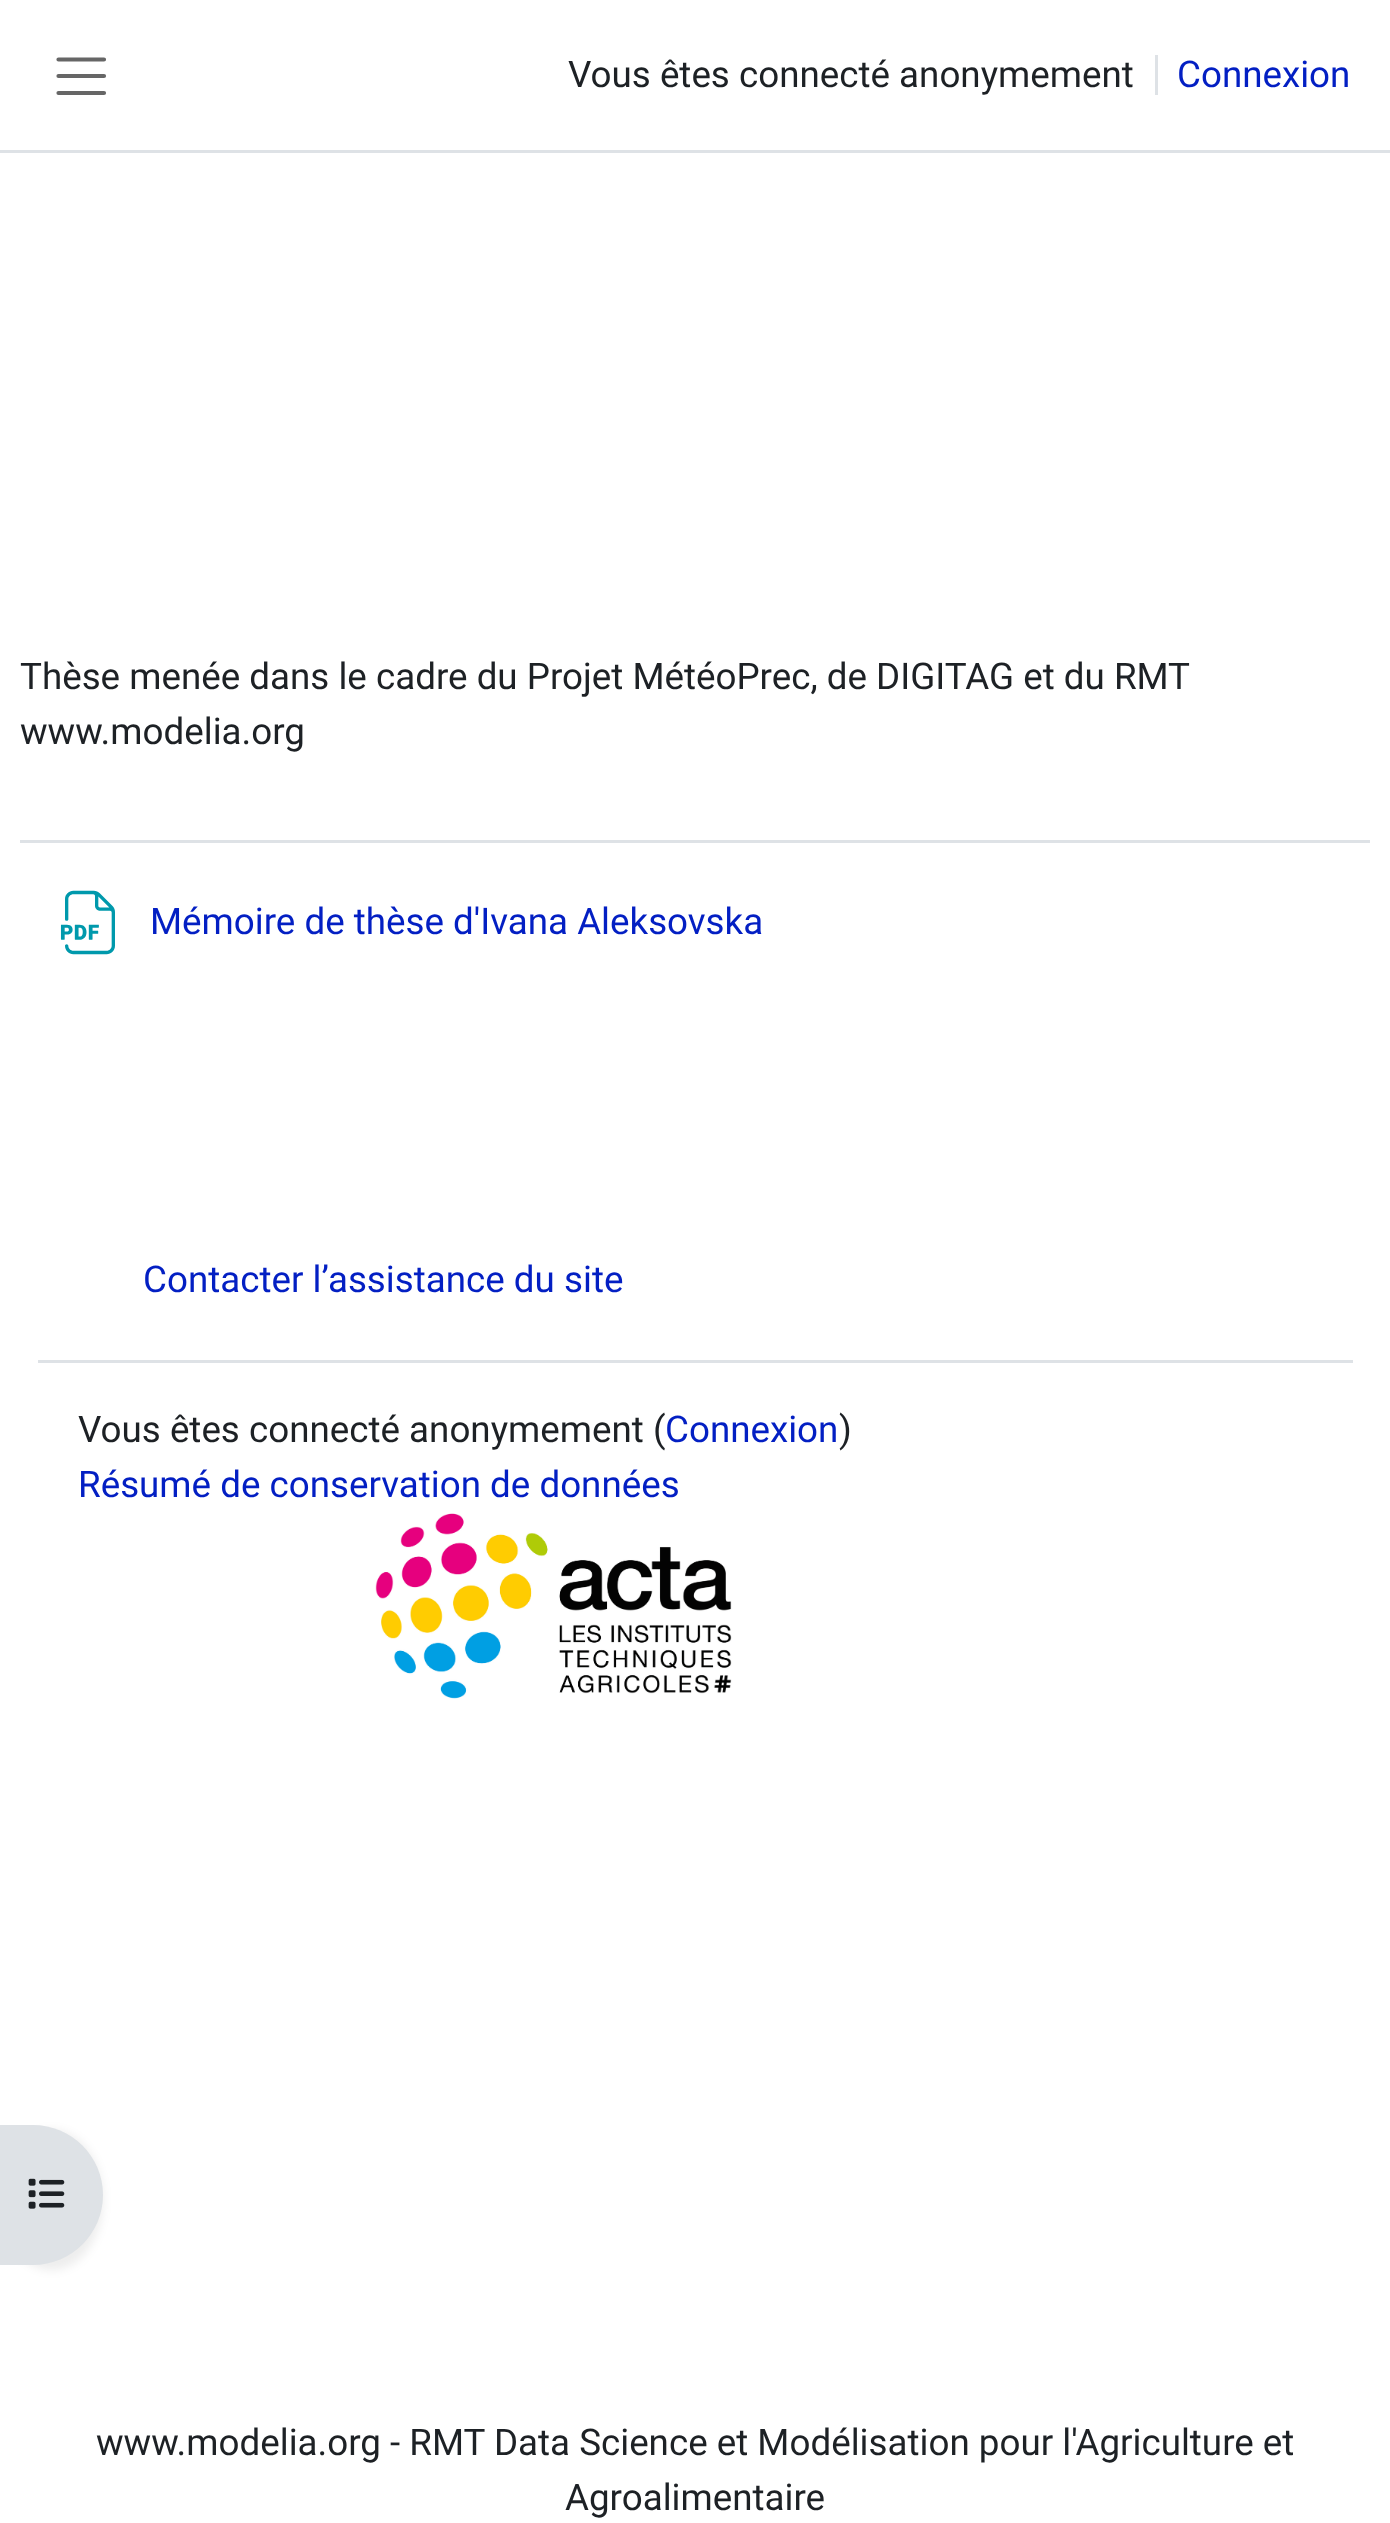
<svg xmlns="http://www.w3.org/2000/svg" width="1390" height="2523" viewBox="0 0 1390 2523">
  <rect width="100%" height="100%" fill="#fff"/>
  <path d="M0 150h1390v3H0z" fill="#dee2e6"/>
  <path d="M58.5 59.5H104M58.5 76H104M58.5 93H104" fill="none" stroke="#666" stroke-width="4.2" stroke-linecap="round"/>
  <path d="M1155 55h3v40H1155z" fill="#dee2e6"/>
  <path d="M20 840h1350v3H20z" fill="#dee2e6"/>
  <image x="60" y="890" width="55" height="65" href="img/1.png"/>
  <rect y="2130" width="103" height="140" rx="70" fill="#00000012" filter="blur(5px)"/>
  <path d="M0 2125H33C71.5 2125 103 2156.5 103 2195C103 2233.5 71.5 2265 33 2265H0Z" fill="#dee2e6"/>
  <image x="28" y="2178" width="37" height="31" href="img/2.png"/>
  <path d="M38 1360h1315v3H38z" fill="#dee2e6"/>
  <image x="375" y="1513" width="357" height="186" href="img/3.png"/>
  <text x="568" y="87" font-family="Roboto" font-size="36.75" fill="#1d2125">Vous êtes connecté anonymement</text>
  <text x="1177" y="87" font-family="Roboto" font-size="36.75" fill="#031fc3">Connexion</text>
  <g font-family="Roboto" font-size="36.75" fill="#1d2125">
    <text x="20" y="689">Thèse menée dans le cadre du Projet MétéoPrec, de DIGITAG et du RMT</text>
    <text x="20" y="744">www.modelia.org</text>
  </g>
  <g font-family="Roboto" font-size="36.75" fill="#031fc3">
    <text x="150" y="934">Mémoire de thèse d'Ivana Aleksovska</text>
    <text x="143" y="1292">Contacter l’assistance du site</text>
  </g>
  <text x="78" y="1442" font-family="Roboto" font-size="36.75" fill="#1d2125">Vous êtes connecté anonymement (</text>
  <text x="665" y="1442" font-family="Roboto" font-size="36.75" fill="#031fc3">Connexion</text>
  <text x="839" y="1442" font-family="Roboto" font-size="36.75" fill="#1d2125">)</text>
  <text x="78" y="1497" font-family="Roboto" font-size="36.75" fill="#031fc3">Résumé de conservation de données</text>
  <g font-family="Roboto" font-size="36.75" fill="#1d2125">
    <text x="96" y="2455">www.modelia.org - RMT Data Science et Modélisation pour l'Agriculture et</text>
    <text x="565" y="2510">Agroalimentaire</text>
  </g>
</svg>
